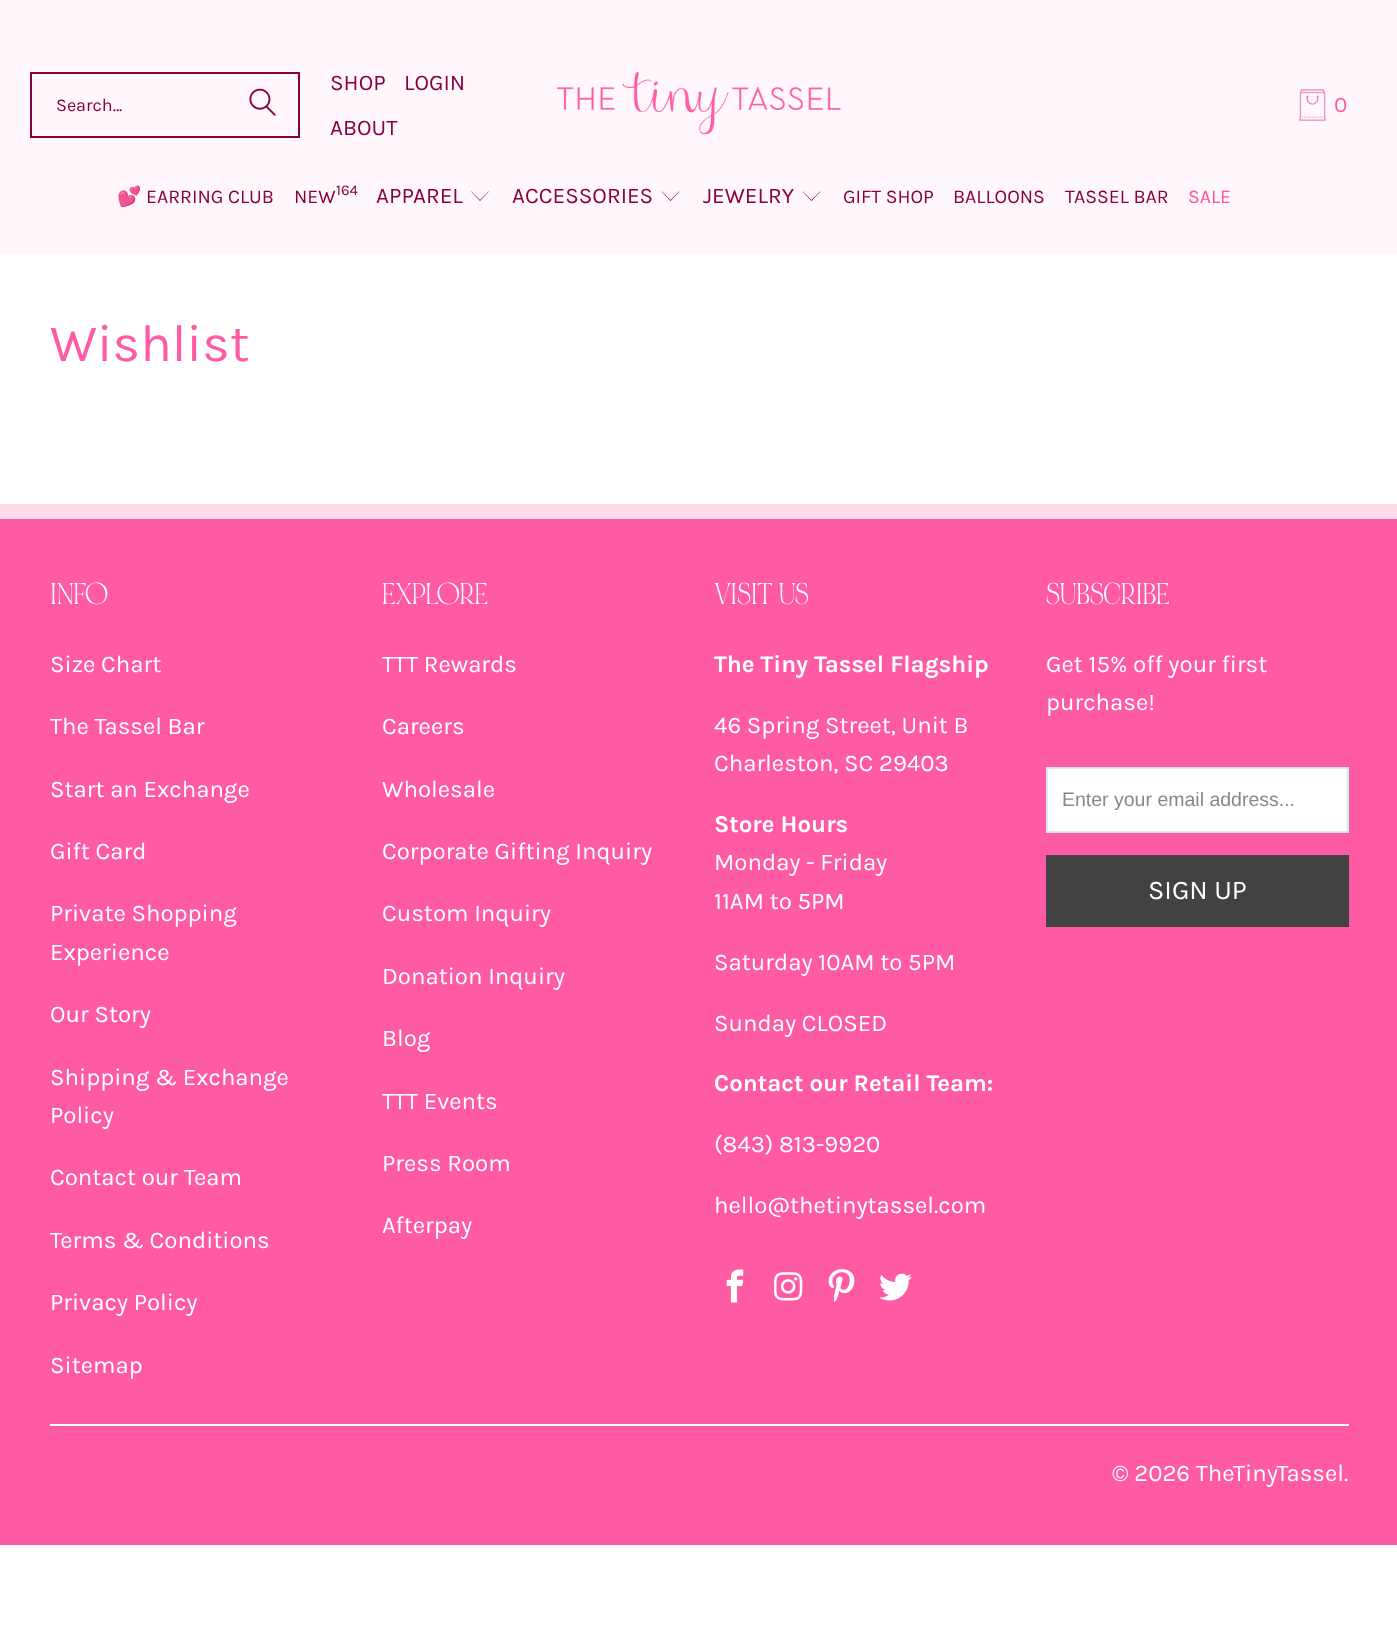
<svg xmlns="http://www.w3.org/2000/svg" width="1397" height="1625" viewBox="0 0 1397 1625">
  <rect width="100%" height="100%" fill="#fff"/>
  <path d="M0 0h1397v254H0z" fill="#fff7fb"/>
  <path d="M31 73h268v64H31z" fill="none" stroke="#890042" stroke-width="2"/>
  <image x="249" y="88" width="27" height="28" href="img/1.png"/>
  <image x="556" y="71" width="285" height="64" href="img/2.png"/>
  <image x="1299" y="89" width="27" height="32" href="img/3.png"/>
  <path d="M480 201L471 191.5H471.5L480 200L488.5 191.5H489Z" fill="#890042"/>
  <path d="M670.5 201L661.5 191.5H662L670.5 200L679 191.5H679.5Z" fill="#890042"/>
  <path d="M811.5 201L802.5 191.5H803L811.5 200L820 191.5H820.5Z" fill="#890042"/>
  <path d="M0 519h1397v1026H0z" fill="#ff5ba5"/>
  <path d="M0 504h1397v15H0z" fill="#ffdaeb"/>
  <image x="726" y="1269" width="18" height="34" href="img/4.png"/>
  <image x="774" y="1272" width="29" height="29" href="img/5.png"/>
  <image x="828" y="1269" width="27" height="33" href="img/6.png"/>
  <image x="879" y="1273" width="33" height="28" href="img/7.png"/>
  <path d="M1047 768h301v64H1047z" fill="#fff" stroke="#d1ecf0" stroke-width="2"/>
  <path d="M1046 855h303v72H1046z" fill="#424242"/>
  <path d="M50 1424h1299v2H50z" fill="#fff"/>
  <text x="56" y="111" font-family="Karla" font-size="18" fill="#890042">Search...</text>
  <g font-family="Karla" font-size="22.5" fill="#890042">
    <text x="330" y="90">SHOP</text>
    <text x="404" y="90">LOGIN</text>
    <text x="330" y="135">ABOUT</text>
  </g>
  <text x="1334" y="112" font-family="Karla" font-size="22.5" fill="#ff5ba5">0</text>
  <text x="117" y="203" font-family="Noto Color Emoji" font-size="19.5" fill="#890042">💕</text>
  <g font-family="Karla" font-size="19.5" fill="#890042">
    <text x="146" y="203">EARRING CLUB</text>
    <text x="294" y="203">NEW</text>
  </g>
  <text x="336" y="195" font-family="Karla" font-size="15" fill="#890042">164</text>
  <g font-family="Karla" font-size="22.5" fill="#890042">
    <text x="376" y="203">APPAREL</text>
    <text x="512" y="203">ACCESSORIES</text>
    <text x="703" y="203">JEWELRY</text>
  </g>
  <g font-family="Karla" font-size="19.5" fill="#890042">
    <text x="843" y="203">GIFT SHOP</text>
    <text x="953" y="203">BALLOONS</text>
    <text x="1065" y="203">TASSEL BAR</text>
  </g>
  <text x="1188" y="203" font-family="Karla" font-size="19.5" fill="#ff519b">SALE</text>
  <text x="50" y="361" font-family="Karla" font-size="52.5" fill="#ff5ba5">Wishlist</text>
  <text x="50" y="604" font-family="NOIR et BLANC" font-size="24" fill="#fff">INFO</text>
  <g font-family="Karla" font-size="24" fill="#fff">
    <text x="50" y="672">Size Chart</text>
    <text x="50" y="734">The Tassel Bar</text>
    <text x="50" y="797">Start an Exchange</text>
    <text x="50" y="859">Gift Card</text>
    <text x="50" y="921">Private Shopping</text>
    <text x="50" y="960">Experience</text>
    <text x="50" y="1022">Our Story</text>
    <text x="50" y="1085">Shipping &amp; Exchange</text>
    <text x="50" y="1123">Policy</text>
    <text x="50" y="1185">Contact our Team</text>
    <text x="50" y="1248">Terms &amp; Conditions</text>
    <text x="50" y="1310">Privacy Policy</text>
    <text x="50" y="1373">Sitemap</text>
  </g>
  <text x="382" y="604" font-family="NOIR et BLANC" font-size="24" fill="#fff">EXPLORE</text>
  <g font-family="Karla" font-size="24" fill="#fff">
    <text x="382" y="672">TTT Rewards</text>
    <text x="382" y="734">Careers</text>
    <text x="382" y="797">Wholesale</text>
    <text x="382" y="859">Corporate Gifting Inquiry</text>
    <text x="382" y="921">Custom Inquiry</text>
    <text x="382" y="984">Donation Inquiry</text>
    <text x="382" y="1046">Blog</text>
    <text x="382" y="1109">TTT Events</text>
    <text x="382" y="1171">Press Room</text>
    <text x="382" y="1233">Afterpay</text>
  </g>
  <text x="714" y="604" font-family="NOIR et BLANC" font-size="24" fill="#fff">VISIT US</text>
  <text x="714" y="672" font-family="Karla" font-size="24" font-weight="bold" fill="#fff">The Tiny Tassel Flagship</text>
  <g font-family="Karla" font-size="24" fill="#fff">
    <text x="714" y="733">46 Spring Street, Unit B</text>
    <text x="714" y="771">Charleston, SC 29403</text>
  </g>
  <text x="714" y="832" font-family="Karla" font-size="24" font-weight="bold" fill="#fff">Store Hours</text>
  <g font-family="Karla" font-size="24" fill="#fff">
    <text x="714" y="870">Monday - Friday</text>
    <text x="714" y="909">11AM to 5PM</text>
    <text x="714" y="970">Saturday 10AM to 5PM</text>
    <text x="714" y="1031">Sunday CLOSED</text>
  </g>
  <text x="714" y="1091" font-family="Karla" font-size="24" font-weight="bold" fill="#fff">Contact our Retail Team:</text>
  <g font-family="Karla" font-size="24" fill="#fff">
    <text x="714" y="1152">(843) 813-9920</text>
    <text x="714" y="1213">hello@thetinytassel.com</text>
  </g>
  <text x="1046" y="604" font-family="NOIR et BLANC" font-size="24" fill="#fff">SUBSCRIBE</text>
  <g font-family="Karla" font-size="24" fill="#fff">
    <text x="1046" y="672">Get 15% off your first</text>
    <text x="1046" y="710">purchase!</text>
  </g>
  <text x="1062" y="806" font-family="Liberation Sans" font-size="19.5" fill="#888">Enter your email address...</text>
  <text x="1148" y="899" font-family="Karla" font-size="27" fill="#fff">SIGN UP</text>
  <g font-family="Karla" font-size="24" fill="#fff">
    <text x="1112" y="1481">© 2026 TheTinyTassel</text>
    <text x="1344" y="1481">.</text>
  </g>
</svg>
